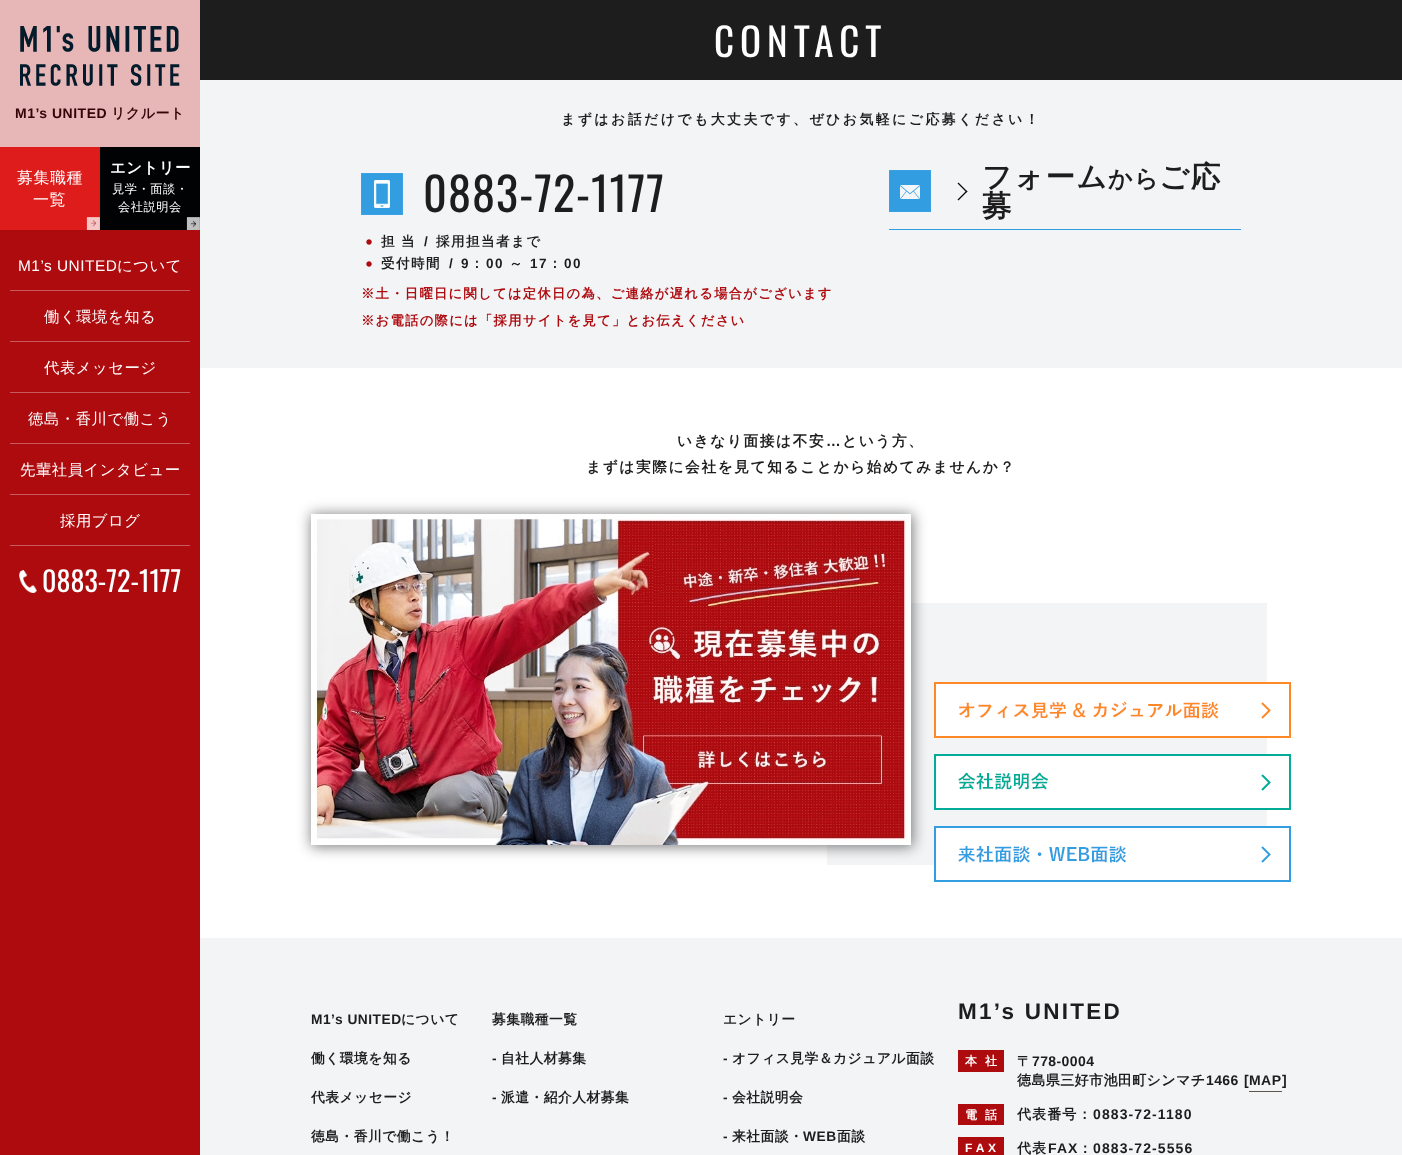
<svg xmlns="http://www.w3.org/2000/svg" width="1402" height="1155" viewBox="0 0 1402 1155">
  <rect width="100%" height="100%" fill="#fff"/>
  <path d="M0 230h200v925H0z" fill="#ae0b0f"/>
  <path d="M0 0h200v147H0z" fill="#e7b6b7"/>
  <image x="20" y="26" width="160" height="60" href="img/1.png"/>
  <path d="M0 147h100v83H0z" fill="#df1c1c"/>
  <image x="86" y="217" width="14" height="13" href="img/2.png"/>
  <path d="M100 147h100v83H100z" fill="#000204"/>
  <image x="186" y="217" width="14" height="13" href="img/3.png"/>
  <path d="M10 290h180v1H10z" fill="#c8595c"/>
  <path d="M10 341h180v1H10z" fill="#c8595c"/>
  <path d="M10 392h180v1H10z" fill="#c8595c"/>
  <path d="M10 443h180v1H10z" fill="#c8595c"/>
  <path d="M10 494h180v1H10z" fill="#c8595c"/>
  <path d="M10 545h180v1H10z" fill="#c8595c"/>
  <image x="19" y="570" width="18" height="23" href="img/4.png"/>
  <path d="M200 80h1202v288H200z" fill="#f2f4f6"/>
  <path d="M200 0h1202v80H200z" fill="#1d1d1d"/>
  <image x="361" y="173" width="42" height="42" href="img/5.png"/>
  <image x="366" y="239" width="6" height="6" href="img/6.png"/>
  <image x="366" y="261" width="6" height="6" href="img/6.png"/>
  <path d="M889 229h352v1H889z" fill="#329ee1"/>
  <image x="889" y="170" width="79" height="42" href="img/7.png"/>
  <path d="M827 603h440v262H827z" fill="#f2f4f6"/>
  <path d="M311 514h602v333H311z" fill="#00000080" filter="blur(7px)"/>
  <image x="311" y="514" width="600" height="331" href="img/8.png"/>
  <image x="934" y="682" width="357" height="56" href="img/9.png"/>
  <image x="934" y="754" width="357" height="56" href="img/10.png"/>
  <image x="934" y="826" width="357" height="56" href="img/11.png"/>
  <path d="M200 938h1202v217H200z" fill="#f2f4f6"/>
  <path d="M958 1050h46v22H958z" fill="#ae0b0f"/>
  <path d="M1249 1091h33v1H1249z" fill="#5e554e"/>
  <path d="M958 1104h46v21H958z" fill="#ae0b0f"/>
  <path d="M958 1137h46v18H958z" fill="#ae0b0f"/>
  <text x="15" y="118" font-family="Liberation Sans" font-size="14" font-weight="bold" letter-spacing="0.5" fill="#340305">M1’s UNITED</text>
  <text x="111" y="118" font-family="WenQuanYi Zen Hei" font-size="14" font-weight="bold" letter-spacing="0.5" fill="#340305">リクルート</text>
  <g font-family="WenQuanYi Zen Hei" font-size="16" font-weight="500" letter-spacing="0.5" fill="#fff">
    <text x="17" y="183">募集職種</text>
    <text x="33" y="205">一覧</text>
  </g>
  <text x="110" y="173" font-family="WenQuanYi Zen Hei" font-size="15.4" font-weight="bold" letter-spacing="0.5" fill="#fff">エントリー</text>
  <g font-family="WenQuanYi Zen Hei" font-size="12.25" font-weight="500" letter-spacing="0.5" fill="#fff">
    <text x="112" y="193">見学・面談・</text>
    <text x="118" y="211">会社説明会</text>
  </g>
  <text x="18" y="271" font-family="Liberation Sans" font-size="15.4" letter-spacing="0.5" fill="#fff">M1’s UNITED</text>
  <g font-family="WenQuanYi Zen Hei" font-size="15.4" font-weight="500" letter-spacing="0.5" fill="#fff">
    <text x="117" y="271">について</text>
    <text x="44" y="322">働く環境を知る</text>
    <text x="44" y="373">代表メッセージ</text>
    <text x="28" y="424">徳島・香川で働こう</text>
    <text x="20" y="475">先輩社員インタビュー</text>
    <text x="60" y="526">採用ブログ</text>
  </g>
  <text x="42" y="592" font-family="Oswald" font-size="28" fill="#fff">0883-72-1177</text>
  <text x="714" y="57" font-family="Oswald" font-size="39" letter-spacing="6" fill="#fff">CONTACT</text>
  <text x="561" y="124" font-family="WenQuanYi Zen Hei" font-size="13.85" font-weight="bold" letter-spacing="2.5" fill="#1d1d1d">まずはお話だけでも大丈夫です、ぜひお気軽にご応募ください！</text>
  <text x="423" y="212" font-family="Oswald" font-size="46.25" letter-spacing="1" fill="#1d1d1d">0883-72-1177</text>
  <text x="381" y="246" font-family="WenQuanYi Zen Hei" font-size="13.5" font-weight="bold" letter-spacing="7" fill="#1d1d1d">担</text>
  <text x="401" y="246" font-family="WenQuanYi Zen Hei" font-size="13.5" font-weight="bold" letter-spacing="1.5" fill="#1d1d1d">当</text>
  <text x="424" y="246" font-family="Liberation Sans" font-size="13.5" font-weight="bold" letter-spacing="1.5" fill="#1d1d1d">/</text>
  <g font-family="WenQuanYi Zen Hei" font-size="13.5" font-weight="bold" letter-spacing="1.5" fill="#1d1d1d">
    <text x="436" y="246">採用担当者まで</text>
    <text x="381" y="268">受付時間</text>
  </g>
  <g font-family="Liberation Sans" font-size="13.5" font-weight="bold" letter-spacing="1.5" fill="#1d1d1d">
    <text x="449" y="268">/</text>
    <text x="461" y="268">9</text>
  </g>
  <text x="470" y="268" font-family="WenQuanYi Zen Hei" font-size="13.5" font-weight="bold" letter-spacing="1.5" fill="#1d1d1d">：</text>
  <text x="486" y="268" font-family="Liberation Sans" font-size="13.5" font-weight="bold" letter-spacing="1.5" fill="#1d1d1d">00</text>
  <text x="509" y="268" font-family="WenQuanYi Zen Hei" font-size="13.5" font-weight="bold" letter-spacing="1.5" fill="#1d1d1d">～</text>
  <text x="530" y="268" font-family="Liberation Sans" font-size="13.5" font-weight="bold" letter-spacing="1.5" fill="#1d1d1d">17</text>
  <text x="548" y="268" font-family="WenQuanYi Zen Hei" font-size="13.5" font-weight="bold" letter-spacing="1.5" fill="#1d1d1d">：</text>
  <text x="564" y="268" font-family="Liberation Sans" font-size="13.5" font-weight="bold" letter-spacing="1.5" fill="#1d1d1d">00</text>
  <g font-family="WenQuanYi Zen Hei" font-size="13.3" font-weight="bold" letter-spacing="1.3" fill="#ae0b0f">
    <text x="361" y="298">※土・日曜日に関しては定休日の為、ご連絡が遅れる場合がございます</text>
    <text x="361" y="325">※お電話の際には「採用サイトを見て」とお伝えください</text>
  </g>
  <text x="982" y="187" font-family="WenQuanYi Zen Hei" font-size="29.5" font-weight="bold" letter-spacing="1.5" fill="#1d1d1d">フォーム</text>
  <text x="1108" y="187" font-family="WenQuanYi Zen Hei" font-size="24" font-weight="bold" letter-spacing="1.5" fill="#1d1d1d">から</text>
  <g font-family="WenQuanYi Zen Hei" font-size="29.5" font-weight="bold" letter-spacing="1.5" fill="#1d1d1d">
    <text x="1159" y="187">ご応</text>
    <text x="982" y="216">募</text>
  </g>
  <text x="677" y="446" font-family="WenQuanYi Zen Hei" font-size="14.7" font-weight="bold" letter-spacing="1.6" fill="#1d1d1d">いきなり面接は不安</text>
  <text x="826" y="446" font-family="Liberation Sans" font-size="14.7" font-weight="bold" letter-spacing="1.6" fill="#1d1d1d">…</text>
  <g font-family="WenQuanYi Zen Hei" font-size="14.7" font-weight="bold" letter-spacing="1.6" fill="#1d1d1d">
    <text x="842" y="446">という方、</text>
    <text x="586" y="472">まずは実際に会社を見て知ることから始めてみませんか？</text>
  </g>
  <text x="311" y="1024" font-family="Liberation Sans" font-size="13.75" font-weight="bold" letter-spacing="0.5" fill="#1d1d1d">M1’s UNITED</text>
  <g font-family="WenQuanYi Zen Hei" font-size="13.75" font-weight="bold" letter-spacing="0.5" fill="#1d1d1d">
    <text x="401" y="1024">について</text>
    <text x="311" y="1063">働く環境を知る</text>
    <text x="311" y="1102">代表メッセージ</text>
    <text x="311" y="1141">徳島・香川で働こう！</text>
    <text x="492" y="1024">募集職種一覧</text>
  </g>
  <text x="492" y="1063" font-family="Liberation Sans" font-size="13.75" font-weight="bold" letter-spacing="0.5" fill="#1d1d1d">-</text>
  <text x="501" y="1063" font-family="WenQuanYi Zen Hei" font-size="13.75" font-weight="bold" letter-spacing="0.5" fill="#1d1d1d">自社人材募集</text>
  <text x="492" y="1102" font-family="Liberation Sans" font-size="13.75" font-weight="bold" letter-spacing="0.5" fill="#1d1d1d">-</text>
  <g font-family="WenQuanYi Zen Hei" font-size="13.75" font-weight="bold" letter-spacing="0.5" fill="#1d1d1d">
    <text x="501" y="1102">派遣・紹介人材募集</text>
    <text x="723" y="1024">エントリー</text>
  </g>
  <text x="723" y="1063" font-family="Liberation Sans" font-size="13.75" font-weight="bold" letter-spacing="0.5" fill="#1d1d1d">-</text>
  <text x="732" y="1063" font-family="WenQuanYi Zen Hei" font-size="13.75" font-weight="bold" letter-spacing="0.5" fill="#1d1d1d">オフィス見学＆カジュアル面談</text>
  <text x="723" y="1102" font-family="Liberation Sans" font-size="13.75" font-weight="bold" letter-spacing="0.5" fill="#1d1d1d">-</text>
  <text x="732" y="1102" font-family="WenQuanYi Zen Hei" font-size="13.75" font-weight="bold" letter-spacing="0.5" fill="#1d1d1d">会社説明会</text>
  <text x="723" y="1141" font-family="Liberation Sans" font-size="13.75" font-weight="bold" letter-spacing="0.5" fill="#1d1d1d">-</text>
  <text x="732" y="1141" font-family="WenQuanYi Zen Hei" font-size="13.75" font-weight="bold" letter-spacing="0.5" fill="#1d1d1d">来社面談・</text>
  <text x="803" y="1141" font-family="Liberation Sans" font-size="13.75" font-weight="bold" letter-spacing="0.5" fill="#1d1d1d">WEB</text>
  <text x="837" y="1141" font-family="WenQuanYi Zen Hei" font-size="13.75" font-weight="bold" letter-spacing="0.5" fill="#1d1d1d">面談</text>
  <text x="958" y="1019" font-family="Liberation Sans" font-size="22.5" font-weight="bold" letter-spacing="2.25" fill="#1d1d1d">M1’s UNITED</text>
  <text x="965" y="1065" font-family="WenQuanYi Zen Hei" font-size="12" font-weight="bold" letter-spacing="8" fill="#fff">本</text>
  <text x="985" y="1065" font-family="WenQuanYi Zen Hei" font-size="12" font-weight="bold" letter-spacing="0.5" fill="#fff">社</text>
  <text x="1017" y="1066" font-family="WenQuanYi Zen Hei" font-size="14" font-weight="bold" letter-spacing="0.4" fill="#1d1d1d">〒</text>
  <text x="1032" y="1066" font-family="Liberation Sans" font-size="14" font-weight="bold" letter-spacing="0.4" fill="#1d1d1d">778-0004</text>
  <text x="1017" y="1085" font-family="WenQuanYi Zen Hei" font-size="14" font-weight="bold" letter-spacing="0.4" fill="#1d1d1d">徳島県三好市池田町シンマチ</text>
  <g font-family="Liberation Sans" font-size="14" font-weight="bold" letter-spacing="0.4" fill="#1d1d1d">
    <text x="1206" y="1085">1466</text>
    <text x="1244" y="1085">[MAP</text>
    <text x="1282" y="1085">]</text>
  </g>
  <text x="965" y="1119" font-family="WenQuanYi Zen Hei" font-size="12" font-weight="bold" letter-spacing="8" fill="#fff">電</text>
  <text x="985" y="1119" font-family="WenQuanYi Zen Hei" font-size="12" font-weight="bold" letter-spacing="0.5" fill="#fff">話</text>
  <text x="1017" y="1119" font-family="WenQuanYi Zen Hei" font-size="14" font-weight="bold" letter-spacing="1.1" fill="#1d1d1d">代表番号：</text>
  <text x="1093" y="1119" font-family="Liberation Sans" font-size="14" font-weight="bold" letter-spacing="1.1" fill="#1d1d1d">0883-72-1180</text>
  <text x="965" y="1152" font-family="Liberation Sans" font-size="12" font-weight="bold" letter-spacing="4" fill="#fff">FA</text>
  <text x="988" y="1152" font-family="Liberation Sans" font-size="12" font-weight="bold" letter-spacing="0.5" fill="#fff">X</text>
  <text x="1017" y="1153" font-family="WenQuanYi Zen Hei" font-size="14" font-weight="bold" letter-spacing="1.1" fill="#1d1d1d">代表</text>
  <text x="1048" y="1153" font-family="Liberation Sans" font-size="14" font-weight="bold" letter-spacing="1.1" fill="#1d1d1d">FAX</text>
  <text x="1078" y="1153" font-family="WenQuanYi Zen Hei" font-size="14" font-weight="bold" letter-spacing="1.1" fill="#1d1d1d">：</text>
  <text x="1093" y="1153" font-family="Liberation Sans" font-size="14" font-weight="bold" letter-spacing="1.1" fill="#1d1d1d">0883-72-5556</text>
</svg>
